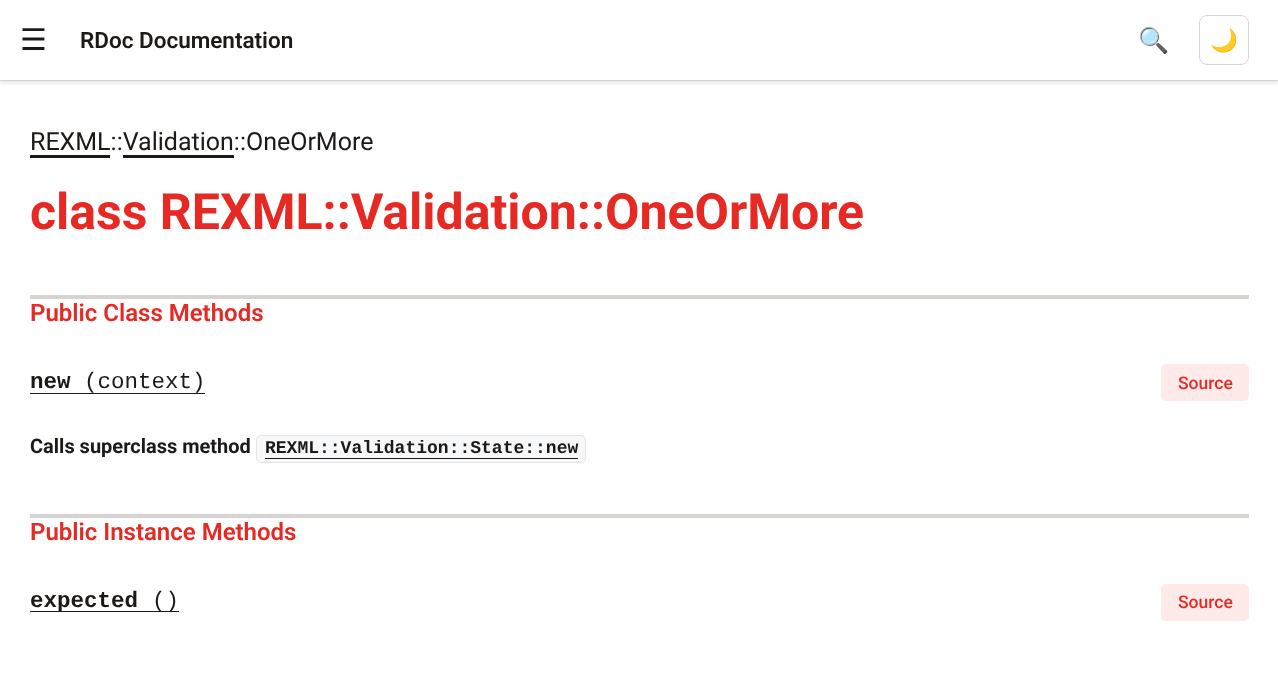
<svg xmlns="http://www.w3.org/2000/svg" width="1278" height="682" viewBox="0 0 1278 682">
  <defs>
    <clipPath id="clip1"><path d="M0 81h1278v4H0z"/></clipPath>
  </defs>
  <rect width="100%" height="100%" fill="#fff"/>
  <g clip-path="url(#clip1)">
    <path d="M0 1h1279v82H0z" fill="#0000001a" filter="blur(2px)"/>
  </g>
  <path d="M0 80h1278v1H0z" fill="#d6d3d1"/>
  <rect x="1199.5" y="15.5" width="49" height="49" rx="7.5" fill="none" stroke="#d6d3d1"/>
  <path d="M30 155h80v3H30z" fill="#1c1917"/>
  <path d="M123 155h111v3H123z" fill="#1c1917"/>
  <path d="M30 295h1219v4H30z" fill="#d6d3d1"/>
  <path d="M30 393h175v1H30z" fill="#1c1917"/>
  <rect x="1161" y="364" width="88" height="37" rx="5" fill="#fdeae9"/>
  <rect x="256.5" y="435.5" width="329" height="27" rx="4.5" fill="#f6f8fa" stroke="#e7e5e4"/>
  <path d="M265 458h313v1H265z" fill="#1c1917"/>
  <path d="M30 514h1219v4H30z" fill="#d6d3d1"/>
  <path d="M30 611h149v1H30z" fill="#1c1917"/>
  <rect x="1161" y="584" width="88" height="37" rx="5" fill="#fdeae9"/>
  <text x="20" y="50" font-family="DejaVu Sans" font-size="30" fill="#1c1917">☰</text>
  <text x="80" y="48" font-family="Roboto" font-size="22.5" font-weight="600" fill="#1c1917">RDoc Documentation</text>
  <text x="1138" y="49" font-family="Noto Color Emoji" font-size="25" fill="#1c1917">🔍</text>
  <text x="1210" y="48" font-family="Noto Color Emoji" font-size="22.5" fill="#1c1917">🌙</text>
  <text x="30" y="150" font-family="Roboto" font-size="25" fill="#1c1917">REXML::Validation::OneOrMore</text>
  <text x="30" y="229" font-family="Roboto" font-size="50" font-weight="bold" fill="#e62923">class REXML::Validation::OneOrMore</text>
  <text x="30" y="321" font-family="Roboto" font-size="24" font-weight="600" fill="#e62923">Public Class Methods</text>
  <text x="30" y="388" font-family="Liberation Mono" font-size="22.5" font-weight="bold" fill="#1c1917">new</text>
  <text x="84" y="388" font-family="Liberation Mono" font-size="22.5" fill="#1c1917">(context)</text>
  <text x="1178" y="389" font-family="Roboto" font-size="17.5" font-weight="500" fill="#e62923">Source</text>
  <text x="30" y="453" font-family="Roboto" font-size="20" font-weight="bold" fill="#1c1917">Calls superclass method</text>
  <text x="265" y="453" font-family="Liberation Mono" font-size="18" font-weight="bold" fill="#1c1917">REXML::Validation::State::new</text>
  <text x="30" y="540" font-family="Roboto" font-size="24" font-weight="600" fill="#e62923">Public Instance Methods</text>
  <text x="30" y="607" font-family="Liberation Mono" font-size="22.5" font-weight="bold" fill="#1c1917">expected</text>
  <text x="152" y="607" font-family="Liberation Mono" font-size="22.5" fill="#1c1917">()</text>
  <text x="1178" y="608" font-family="Roboto" font-size="17.5" font-weight="500" fill="#e62923">Source</text>
</svg>
